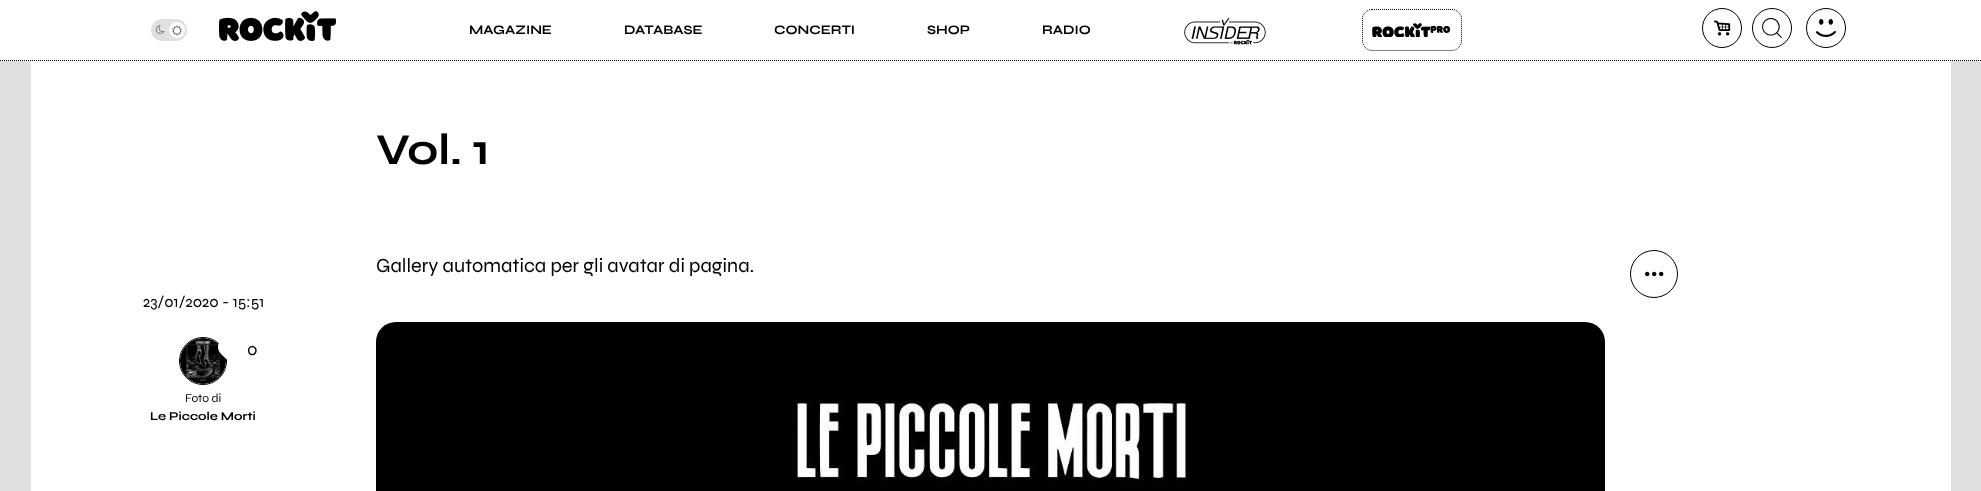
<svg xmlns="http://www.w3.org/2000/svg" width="1981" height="491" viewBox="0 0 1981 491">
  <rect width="100%" height="100%" fill="#e0e0e0"/>
  <path d="M31 61h1920v430H31z" fill="#fff"/>
  <path d="M0 0h1981v61H0z" fill="#fff"/>
  <path d="M0 60.5H1981" fill="none" stroke="#000" stroke-dasharray="1 1"/>
  <image x="219" y="11" width="117" height="30" href="img/1.png"/>
  <circle cx="1722" cy="28" r="19.5" fill="none" stroke="#000"/>
  <image x="1714" y="20" width="17" height="16" href="img/2.png"/>
  <circle cx="1772" cy="28" r="19.5" fill="none" stroke="#000"/>
  <image x="1762" y="17" width="20" height="21" href="img/3.png"/>
  <image x="1816" y="19" width="20" height="18" href="img/4.png"/>
  <circle cx="1826" cy="28" r="19.5" fill="none" stroke="#000"/>
  <rect x="151" y="19" width="36" height="22" rx="11" fill="#e0e0e0"/>
  <circle cx="177" cy="30" r="8" fill="#fff"/>
  <image x="156" y="25" width="9" height="9" href="img/5.png"/>
  <image x="172" y="25" width="10" height="11" href="img/6.png"/>
  <image x="1184" y="18" width="82" height="27" href="img/7.png"/>
  <image x="1372" y="23" width="79" height="14" href="img/8.png"/>
  <path d="M1372 9.5H1452C1457 9.5 1461.5 14 1461.5 19V41C1461.5 46 1457 50.5 1452 50.5H1372C1367 50.5 1362.5 46 1362.5 41V19C1362.5 14 1367 9.5 1372 9.5Z" fill="none" stroke="#000" stroke-dasharray="1 1"/>
  <rect x="376" y="322" width="1229" height="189" rx="20" fill="#e0e0e0"/>
  <image x="376" y="322" width="1229" height="169" href="img/9.png"/>
  <circle cx="1654" cy="274" r="23.5" fill="none" stroke="#000"/>
  <image x="1645" y="271" width="19" height="6" href="img/10.png"/>
  <circle cx="203" cy="361" r="23.5" fill="none" stroke="#000"/>
  <circle cx="203" cy="361" r="23" fill="#fff"/>
  <image x="180" y="338" width="46" height="46" href="img/12.png"/>
  <image x="218" y="343" width="9" height="17" href="img/11.png"/>
  <g font-family="Syne" font-size="13" font-weight="bold" fill="#000">
    <text x="469" y="34">MAGAZINE</text>
    <text x="624" y="34">DATABASE</text>
    <text x="774" y="34">CONCERTI</text>
    <text x="927" y="34">SHOP</text>
    <text x="1042" y="34">RADIO</text>
  </g>
  <text x="376" y="164" font-family="Syne" font-size="44" font-weight="bold" fill="#000">Vol. 1</text>
  <text x="376" y="272" font-family="Syne" font-size="20" fill="#000">Gallery automatica per gli avatar di pagina.</text>
  <text x="143" y="307" font-family="Syne" font-size="16" fill="#000">23/01/2020 - 15:51</text>
  <text x="247" y="355" font-family="Syne" font-size="18" fill="#000">0</text>
  <text x="185" y="402" font-family="Syne" font-size="12" fill="#000">Foto di</text>
  <text x="150" y="420" font-family="Syne" font-size="12" font-weight="bold" fill="#000">Le Piccole Morti</text>
</svg>
